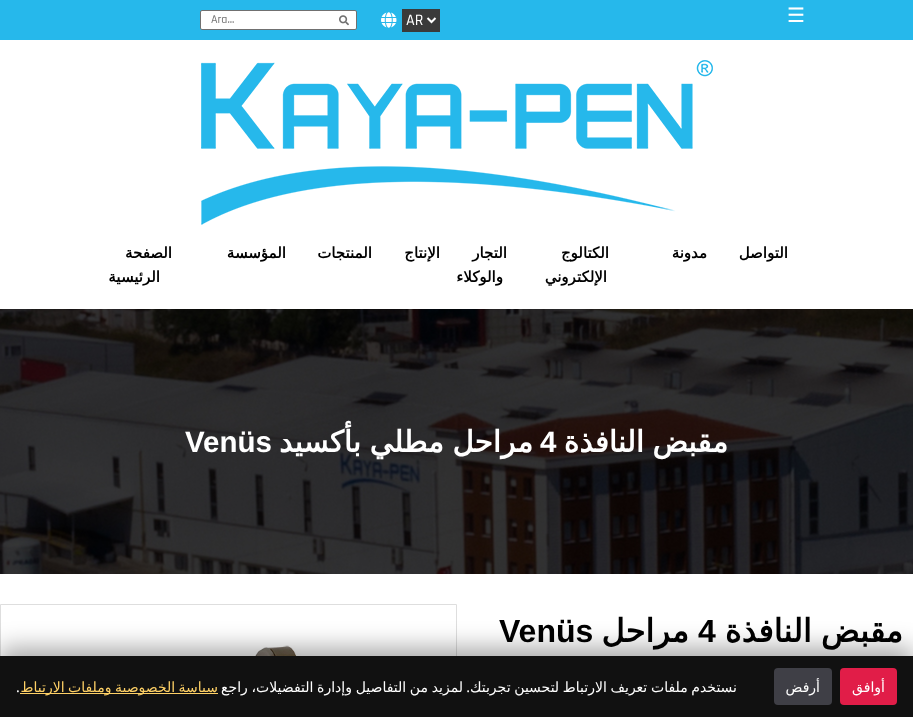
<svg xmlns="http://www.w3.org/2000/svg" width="913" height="717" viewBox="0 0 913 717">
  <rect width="100%" height="100%" fill="#fff"/>
  <path d="M0 0h913v40H0z" fill="#26b8eb"/>
  <path d="M402 9h38v23H402z" fill="#3a3a3a"/>
  <path d="M427.5 18L431.5 22L435.5 18" fill="none" stroke="#fff" stroke-width="2"/>
  <image x="381" y="12" width="16" height="16" href="img/1.png"/>
  <rect x="200.5" y="10.5" width="156" height="19" rx="1.5" fill="#fff" stroke="#707070"/>
  <image x="339" y="15" width="10" height="11" href="img/2.png"/>
  <image x="201" y="60" width="512" height="165" href="img/3.png"/>
  <image x="0" y="309" width="913" height="265" href="img/4.png"/>
  <path d="M0.5 604.5h456v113H0.5z" fill="none" stroke="#dedede"/>
  <image x="207" y="645" width="96" height="11" href="img/5.png"/>
  <path d="M0 648h913v61H0z" fill="#00000059" filter="blur(12px)"/>
  <path d="M0 656h913v61H0z" fill="#111"/>
  <rect x="840" y="668" width="57" height="37" rx="4" fill="#e11d48"/>
  <rect x="774" y="668" width="58" height="37" rx="4" fill="#3f3f46"/>
  <path d="M20 693h198v1H20z" fill="#ffd166"/>
  <text x="787" y="22" font-family="DejaVu Sans" font-size="20" fill="#fff">☰</text>
  <text x="406" y="25" font-family="Rajdhani" font-size="16" font-weight="500" fill="#fff">AR</text>
  <text x="211" y="23" font-family="Rajdhani" font-size="12" font-weight="500" fill="#757575">Ara...</text>
  <g font-family="DejaVu Sans" font-size="15" font-weight="bold" direction="rtl" fill="#000">
    <text x="788" y="258">التواصل</text>
    <text x="707" y="258">مدونة</text>
    <text x="609" y="258">الكتالوج</text>
    <text x="607" y="282">الإلكتروني</text>
    <text x="507" y="258">التجار</text>
    <text x="503" y="282">والوكلاء</text>
    <text x="440" y="258">الإنتاج</text>
    <text x="372" y="258">المنتجات</text>
    <text x="286" y="258">المؤسسة</text>
    <text x="172" y="258">الصفحة</text>
    <text x="160" y="282">الرئيسية</text>
  </g>
  <text x="728" y="452" word-spacing="-1" font-family="DejaVu Sans" font-size="29.5" font-weight="bold" direction="rtl" fill="#fff">مقبض النافذة</text>
  <text x="540" y="452" font-family="Liberation Sans" font-size="29.5" font-weight="bold" fill="#fff">4</text>
  <text x="533" y="452" word-spacing="-1" font-family="DejaVu Sans" font-size="29.5" font-weight="bold" direction="rtl" fill="#fff">مراحل مطلي بأكسيد</text>
  <text x="185" y="452" font-family="Liberation Sans" font-size="29.5" font-weight="bold" fill="#fff">Venüs</text>
  <text x="903" y="642" word-spacing="-1" font-family="DejaVu Sans" font-size="32" font-weight="bold" direction="rtl" fill="#000">مقبض النافذة</text>
  <text x="698" y="642" font-family="Liberation Sans" font-size="32" font-weight="bold" fill="#000">4</text>
  <text x="689" y="642" font-family="DejaVu Sans" font-size="32" font-weight="bold" direction="rtl" fill="#000">مراحل</text>
  <text x="499" y="642" font-family="Liberation Sans" font-size="32" font-weight="bold" fill="#000">Venüs</text>
  <g font-family="DejaVu Sans" font-size="14" direction="rtl" fill="#fff">
    <text x="885" y="692">أوافق</text>
    <text x="820" y="692">أرفض</text>
    <text x="737" y="692" word-spacing="-0.75">نستخدم ملفات تعريف الارتباط لتحسين تجربتك</text>
  </g>
  <text x="470" y="692" font-family="Noto Sans" font-size="14" direction="rtl" fill="#fff">.</text>
  <text x="463" y="692" word-spacing="-0.75" font-family="DejaVu Sans" font-size="14" direction="rtl" fill="#fff">لمزيد من التفاصيل وإدارة التفضيلات، راجع</text>
  <text x="218" y="692" word-spacing="-1" font-family="DejaVu Sans" font-size="14" direction="rtl" fill="#ffd166">سياسة الخصوصية وملفات الارتباط</text>
  <text x="16" y="692" font-family="Noto Sans" font-size="14" fill="#fff">.</text>
</svg>
